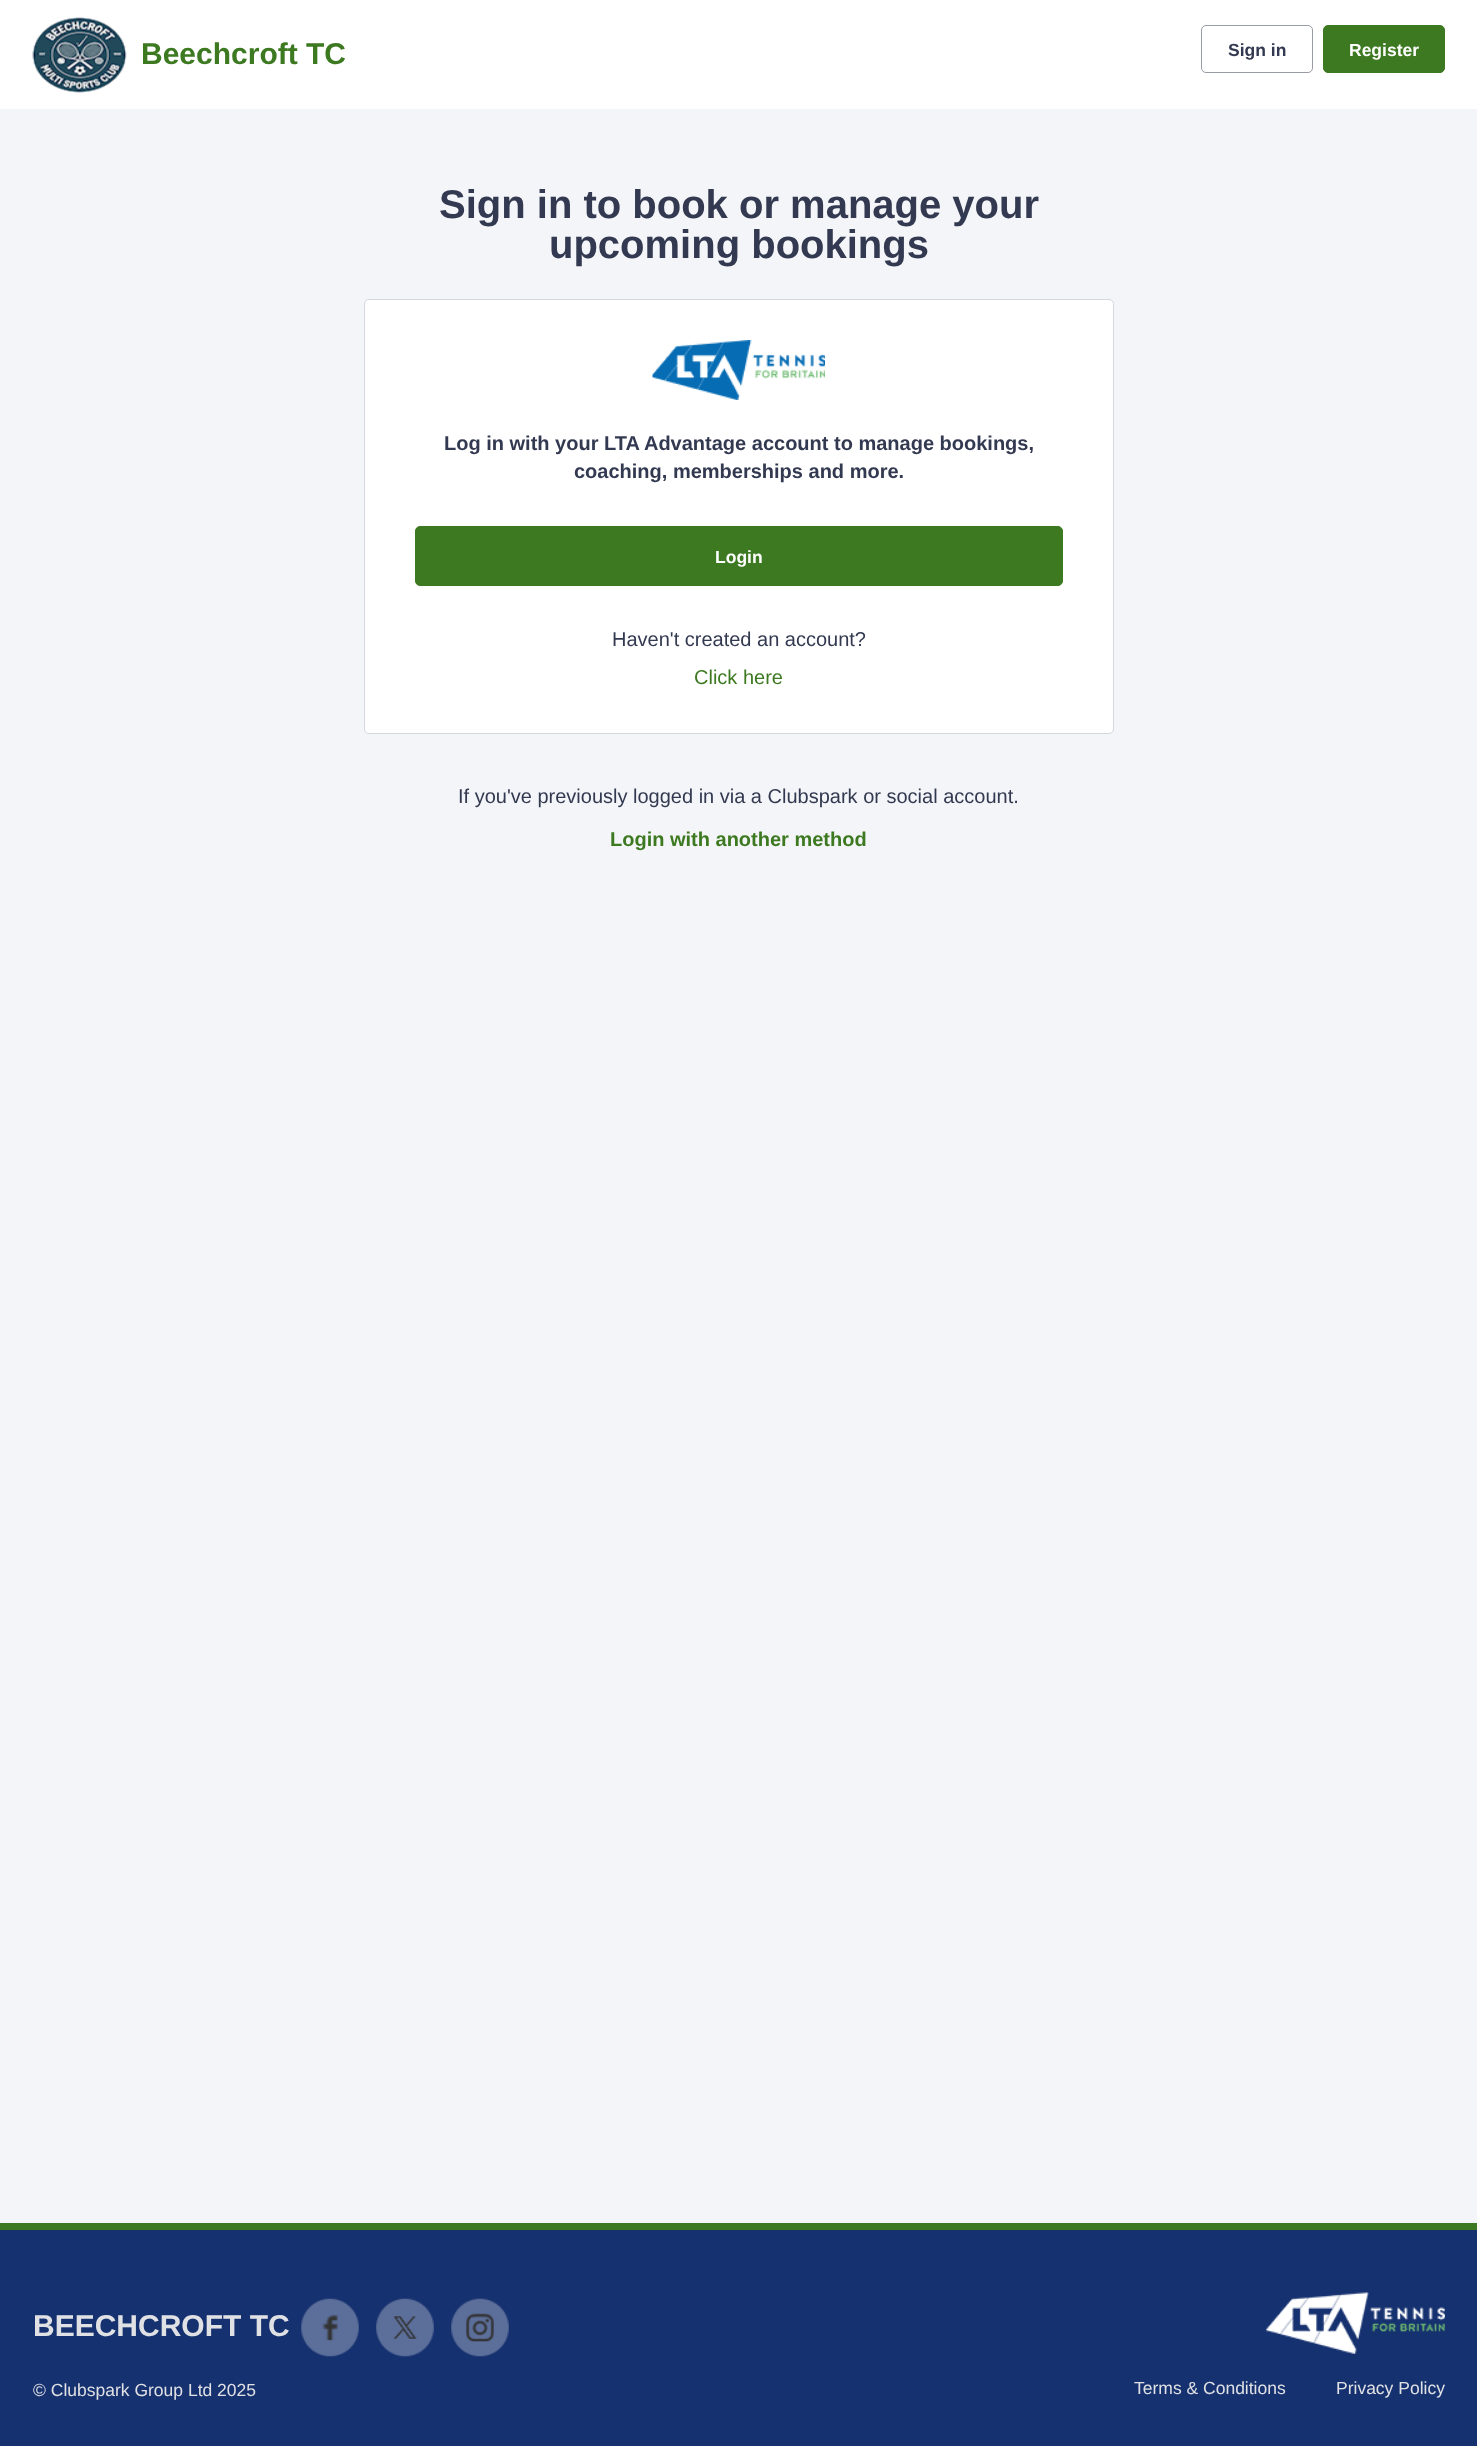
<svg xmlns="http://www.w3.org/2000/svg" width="1477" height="2446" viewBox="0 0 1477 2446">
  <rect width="100%" height="100%" fill="#fff"/>
  <image x="32" y="17" width="95" height="76" href="img/1.png"/>
  <rect x="1201.5" y="25.5" width="111" height="47" rx="4.5" fill="none" stroke="#989ca7"/>
  <rect x="1323.5" y="25.5" width="121" height="47" rx="4.5" fill="#3c7920" stroke="#3c7920"/>
  <path d="M0 109h1477v2114H0z" fill="#f4f5f8"/>
  <rect x="364.5" y="299.5" width="749" height="434" rx="4.5" fill="#fff" stroke="#d5d7de"/>
  <image x="652" y="340" width="173" height="60" href="img/2.png"/>
  <rect x="415.5" y="526.5" width="647" height="59" rx="4.5" fill="#3c7920" stroke="#3c7920"/>
  <path d="M0 2230h1477v216H0z" fill="#16316f"/>
  <path d="M0 2223h1477v7H0z" fill="#3c7920"/>
  <image x="301" y="2298" width="58" height="59" href="img/3.png"/>
  <image x="376" y="2298" width="58" height="59" href="img/4.png"/>
  <image x="451" y="2298" width="58" height="59" href="img/5.png"/>
  <image x="1266" y="2292" width="179" height="62" href="img/6.png"/>
  <text x="141" y="64" font-family="Liberation Sans" font-size="30" font-weight="bold" fill="#3c7920">Beechcroft TC</text>
  <text x="1228" y="56" font-family="Liberation Sans" font-size="17.5" font-weight="bold" fill="#323950">Sign in</text>
  <text x="1349" y="56" font-family="Liberation Sans" font-size="17.5" font-weight="bold" fill="#fff">Register</text>
  <g font-family="Liberation Sans" font-size="40" font-weight="bold" fill="#323950">
    <text x="439" y="218">Sign in to book or manage your</text>
    <text x="549" y="258">upcoming bookings</text>
  </g>
  <g font-family="Liberation Sans" font-size="20" font-weight="bold" fill="#323950">
    <text x="444" y="450">Log in with your LTA Advantage account to manage bookings,</text>
    <text x="574" y="478">coaching, memberships and more.</text>
  </g>
  <text x="715" y="563" font-family="Liberation Sans" font-size="17.5" font-weight="bold" fill="#fff">Login</text>
  <text x="612" y="646" font-family="Liberation Sans" font-size="20" fill="#323950">Haven't created an account?</text>
  <text x="694" y="684" font-family="Liberation Sans" font-size="20" fill="#3c7920">Click here</text>
  <text x="458" y="803" font-family="Liberation Sans" font-size="20" fill="#323950">If you've previously logged in via a Clubspark or social account.</text>
  <text x="610" y="846" font-family="Liberation Sans" font-size="20" font-weight="bold" fill="#3c7920">Login with another method</text>
  <text x="33" y="2336" font-family="Liberation Sans" font-size="30" font-weight="bold" fill="#dfe1e4">BEECHCROFT TC</text>
  <g font-family="Liberation Sans" font-size="17.5" fill="#dfe1e4">
    <text x="33" y="2396">© Clubspark Group Ltd 2025</text>
    <text x="1134" y="2394">Terms &amp; Conditions</text>
    <text x="1336" y="2394">Privacy Policy</text>
  </g>
</svg>
